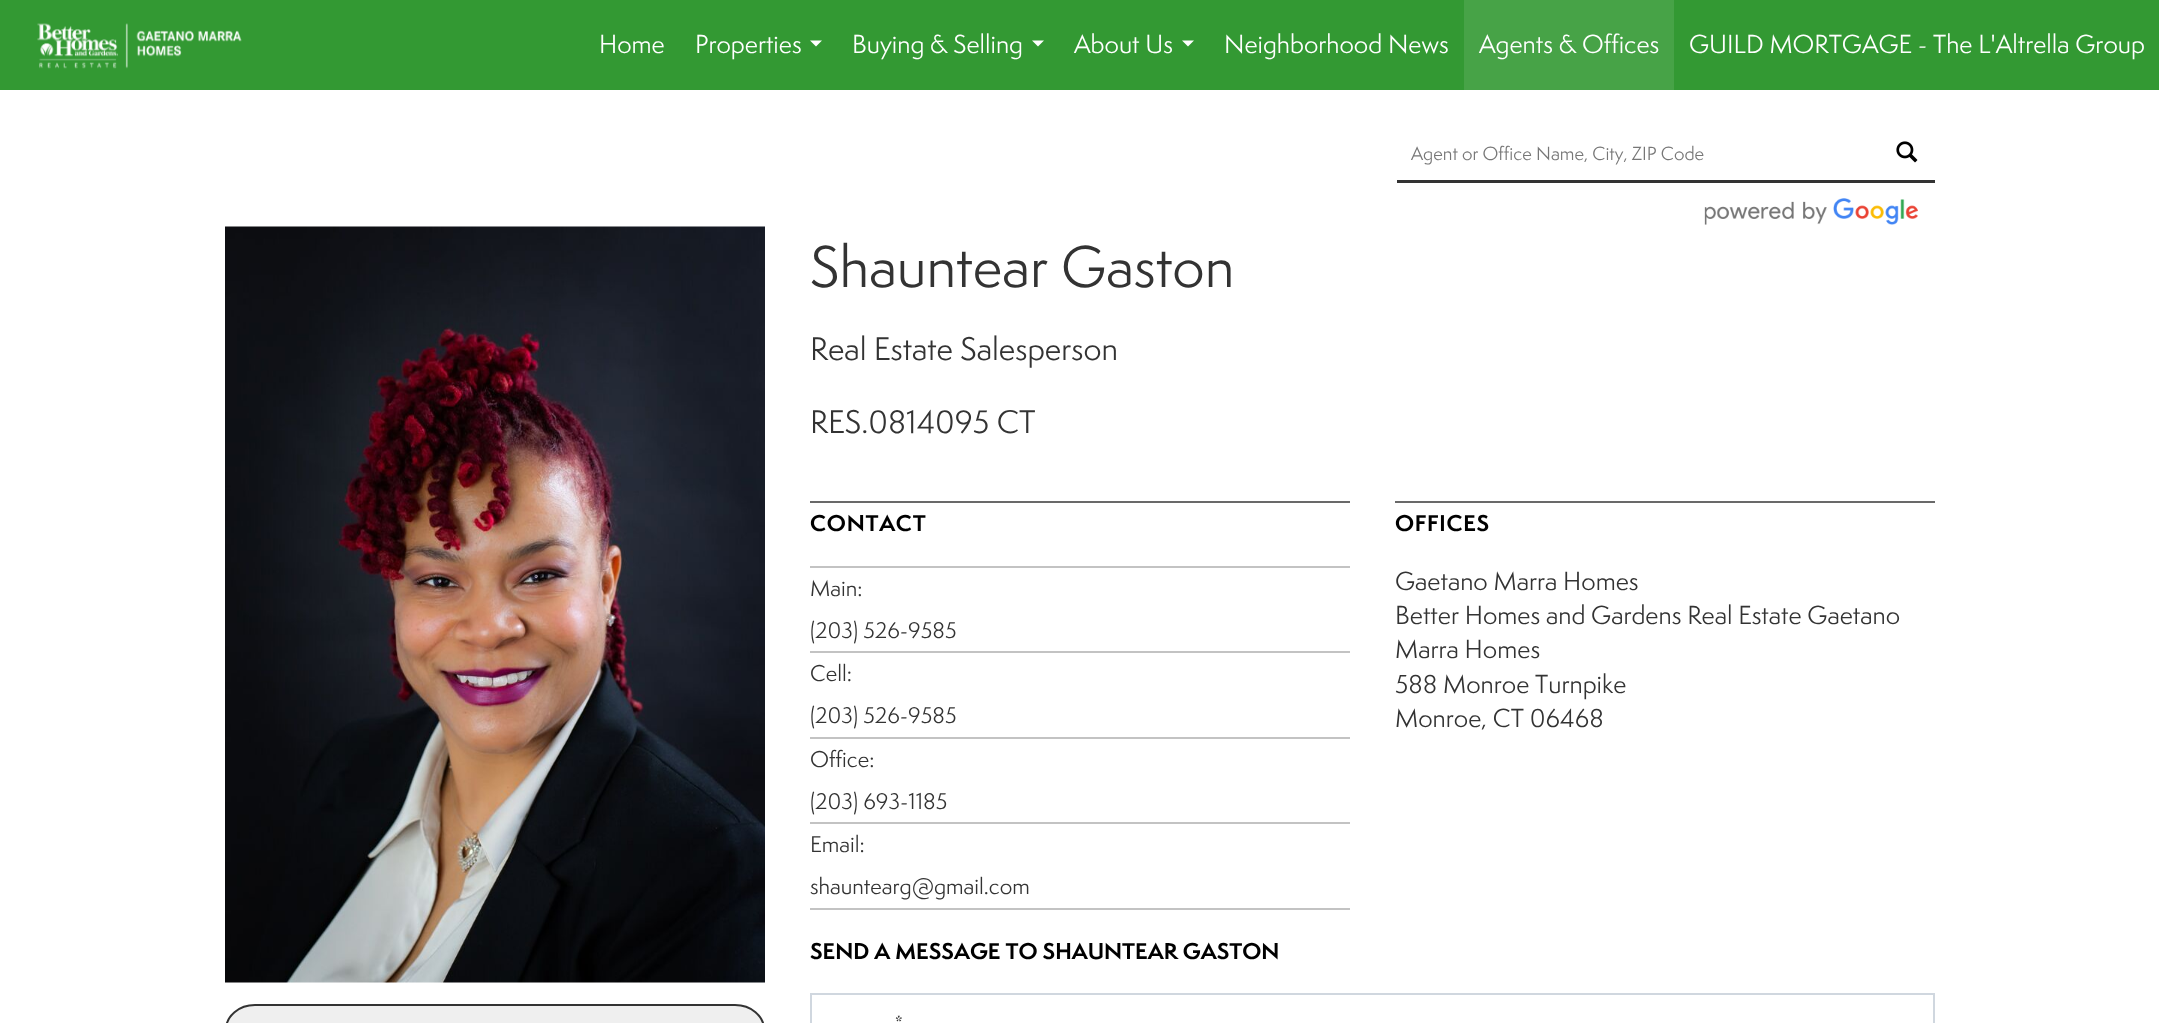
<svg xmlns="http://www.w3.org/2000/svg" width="2159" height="1023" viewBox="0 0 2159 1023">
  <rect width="100%" height="100%" fill="#fff"/>
  <path d="M0 0h2159v90H0z" fill="#393"/>
  <image x="37" y="23" width="205" height="46" href="img/1.png"/>
  <path d="M810 40.5H822L816 46.5Z" fill="#fff"/>
  <path d="M1032 40.5H1044L1038 46.5Z" fill="#fff"/>
  <path d="M1182 40.5H1194L1188 46.5Z" fill="#fff"/>
  <path d="M1464 0h210v90H1464z" fill="#47a347"/>
  <path d="M1397 180h538v3H1397z" fill="#333"/>
  <image x="1896" y="141" width="22" height="22" href="img/2.png"/>
  <image x="1704" y="198" width="214" height="27" href="img/3.png"/>
  <image x="225" y="226" width="540" height="757" href="img/4.png"/>
  <rect x="226" y="1005" width="538" height="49" rx="29" fill="#efefef" stroke="#333" stroke-width="2"/>
  <path d="M810 501h540v2H810z" fill="#696969"/>
  <path d="M810 566h540v2H810z" fill="#c3c3c3"/>
  <path d="M810 651h540v2H810z" fill="#c3c3c3"/>
  <path d="M810 737h540v2H810z" fill="#c3c3c3"/>
  <path d="M810 822h540v2H810z" fill="#c3c3c3"/>
  <path d="M810 908h540v2H810z" fill="#c3c3c3"/>
  <path d="M1395 501h540v2H1395z" fill="#696969"/>
  <path d="M811 994h1123v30H811z" fill="none" stroke="#d0d7df" stroke-width="2"/>
  <g font-family="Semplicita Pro" font-size="24" fill="#fff">
    <text x="599" y="53">Home</text>
    <text x="695" y="53">Properties</text>
    <text x="852" y="53">Buying &amp; Selling</text>
    <text x="1074" y="53">About Us</text>
    <text x="1224" y="53">Neighborhood News</text>
    <text x="1479" y="53">Agents &amp; Offices</text>
    <text x="1689" y="53">GUILD MORTGAGE - The L'Altrella Group</text>
  </g>
  <text x="1411" y="160" font-family="Semplicita Pro" font-size="17.5" fill="#777">Agent or Office Name, City, ZIP Code</text>
  <text x="810" y="287" font-family="Semplicita Pro" font-size="54" fill="#333">Shauntear Gaston</text>
  <g font-family="Semplicita Pro" font-size="30" fill="#333">
    <text x="810" y="360">Real Estate Salesperson</text>
    <text x="810" y="433">RES.0814095 CT</text>
  </g>
  <text x="810" y="531" font-family="Semplicita Pro" font-size="21" font-weight="bold" letter-spacing="0.75" fill="#000">CONTACT</text>
  <g font-family="Semplicita Pro" font-size="21" fill="#333">
    <text x="810" y="596">Main:</text>
    <text x="810" y="638">(203) 526-9585</text>
    <text x="810" y="681">Cell:</text>
    <text x="810" y="723">(203) 526-9585</text>
    <text x="810" y="767">Office:</text>
    <text x="810" y="809">(203) 693-1185</text>
    <text x="810" y="852">Email:</text>
    <text x="810" y="894">shauntearg@gmail.com</text>
  </g>
  <text x="1395" y="531" font-family="Semplicita Pro" font-size="21" font-weight="bold" letter-spacing="0.75" fill="#000">OFFICES</text>
  <g font-family="Semplicita Pro" font-size="24" fill="#333">
    <text x="1395" y="590">Gaetano Marra Homes</text>
    <text x="1395" y="624">Better Homes and Gardens Real Estate Gaetano</text>
    <text x="1395" y="658">Marra Homes</text>
    <text x="1395" y="693">588 Monroe Turnpike</text>
    <text x="1395" y="727">Monroe, CT 06468</text>
  </g>
  <text x="810" y="959" font-family="Semplicita Pro" font-size="21" font-weight="bold" fill="#000">SEND A MESSAGE TO SHAUNTEAR GASTON</text>
  <text x="895" y="1029" font-family="Semplicita Pro" font-size="16" font-weight="bold" letter-spacing="2" fill="#333">*</text>
</svg>
